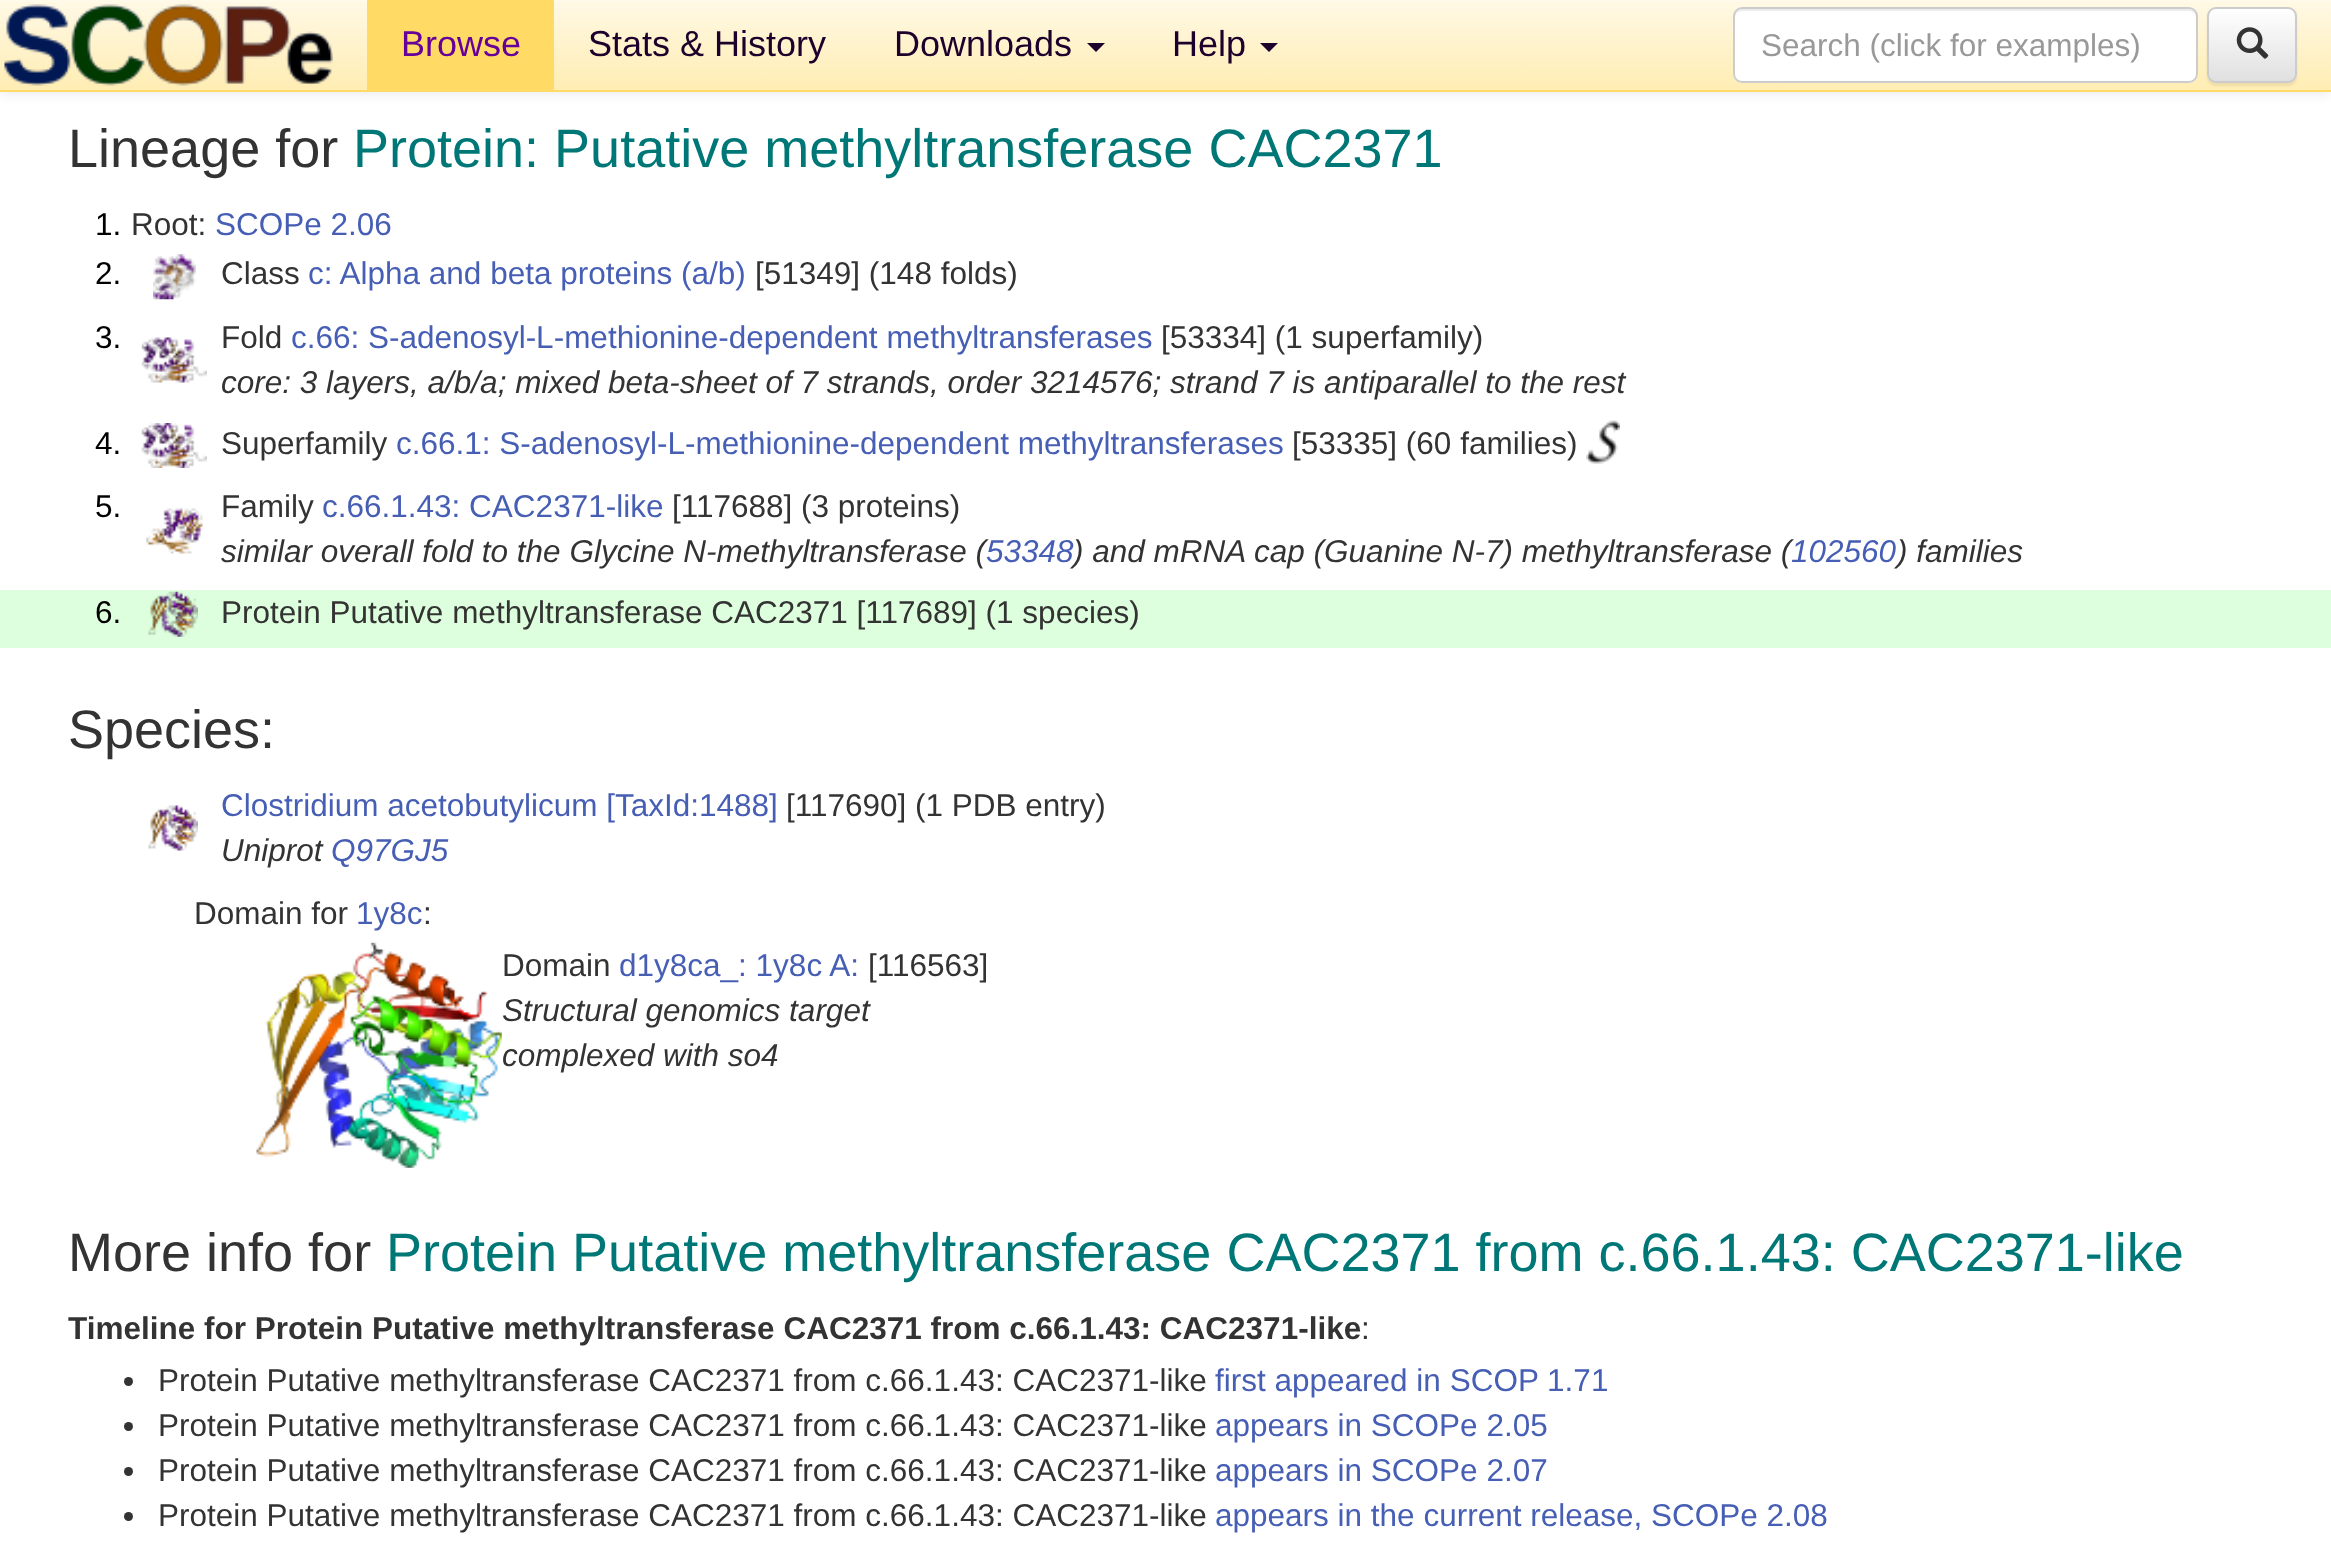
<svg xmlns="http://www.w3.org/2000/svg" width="2331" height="1559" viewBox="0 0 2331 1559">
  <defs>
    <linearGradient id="g1" gradientUnits="userSpaceOnUse" x1="1166" y1="0" x2="1166" y2="90"><stop offset="0" stop-color="#fff9e6"/><stop offset="1" stop-color="#ffedb3"/></linearGradient>
    <clipPath id="clip1"><rect x="2207" y="7" width="90" height="76" rx="9"/></clipPath>
    <linearGradient id="g2" gradientUnits="userSpaceOnUse" x1="2252" y1="9" x2="2252" y2="81"><stop offset="0" stop-color="#fff"/><stop offset="1" stop-color="#e0e0e0"/></linearGradient>
  </defs>
  <rect width="100%" height="100%" fill="#fff"/>
  <path d="M0 2h2331v93H0z" fill="#00000012" filter="blur(5.5px)"/>
  <path d="M0 2h2331v88H0z" fill="url(#g1)"/>
  <path d="M0 0h2331v2H0z" fill="#fffae9"/>
  <path d="M0 90h2331v2H0z" fill="#ffda65"/>
  <image x="4" y="4" width="329" height="82" href="img/1.png"/>
  <path d="M367 0h187v90H367z" fill="#ffda65"/>
  <path d="M1087 43H1105L1096 52Z" fill="#1d002b"/>
  <path d="M1260 43H1278L1269 52Z" fill="#1d002b"/>
  <rect x="1733" y="7" width="465" height="76" rx="9" fill="#fff"/>
  <path d="M1742 11H2189C2193 11 2196 14 2196 18V16C2196 12 2193 9 2189 9H1742C1738 9 1735 12 1735 16V18C1735 14 1738 11 1742 11Z" fill="#ececec"/>
  <rect x="1734" y="8" width="463" height="74" rx="8" fill="none" stroke="#ccc" stroke-width="2"/>
  <rect x="2207" y="9" width="90" height="77" rx="9" fill="#00000012" filter="blur(1px)"/>
  <g clip-path="url(#clip1)">
    <path d="M2207 9h90v72H2207z" fill="url(#g2)"/>
  </g>
  <path d="M2216 11H2288C2292 11 2295 14 2295 18C2295 6 2285 9 2276 9H2229C2220 9 2210 6 2210 18C2210 14 2213 11 2216 11Z" fill="#fff"/>
  <rect x="2208" y="8" width="88" height="74" rx="8" fill="none" stroke="#ccc" stroke-width="2"/>
  <image x="2236" y="27" width="33" height="32" href="img/2.png"/>
  <image x="153" y="254" width="43" height="46" href="img/3.png"/>
  <image x="141" y="337" width="66" height="46" href="img/4.png"/>
  <image x="141" y="423" width="66" height="45" href="img/5.png"/>
  <image x="1586" y="420" width="34" height="44" href="img/6.png"/>
  <image x="146" y="508" width="57" height="46" href="img/7.png"/>
  <path d="M0 590h2331v58H0z" fill="#dfd"/>
  <image x="148" y="591" width="50" height="46" href="img/8.png"/>
  <image x="148" y="805" width="50" height="46" href="img/9.png"/>
  <image x="256" y="942" width="246" height="226" href="img/10.png"/>
  <circle cx="128.5" cy="1381.5" r="4.5" fill="#333"/>
  <circle cx="128.5" cy="1426.5" r="4.5" fill="#333"/>
  <circle cx="128.5" cy="1471.5" r="4.5" fill="#333"/>
  <circle cx="128.5" cy="1516.5" r="4.5" fill="#333"/>
  <text x="401" y="56" font-family="Liberation Sans" font-size="36" fill="#609">Browse</text>
  <g font-family="Liberation Sans" font-size="36" fill="#1d002b">
    <text x="588" y="56">Stats &amp; History</text>
    <text x="894" y="56">Downloads</text>
    <text x="1172" y="56">Help</text>
  </g>
  <text x="1761" y="56" font-family="Liberation Sans" font-size="31.5" fill="#999">Search (click for examples)</text>
  <text x="68" y="167" font-family="Liberation Sans" font-size="54" fill="#333">Lineage for</text>
  <text x="353" y="167" font-family="Liberation Sans" font-size="54" fill="#077">Protein: Putative methyltransferase CAC2371</text>
  <text x="95" y="235" font-family="Liberation Sans" font-size="31.5" fill="#000">1.</text>
  <text x="131" y="235" font-family="Liberation Sans" font-size="31.5" fill="#333">Root:</text>
  <text x="215" y="235" font-family="Liberation Sans" font-size="31.5" fill="#465eb4">SCOPe 2.06</text>
  <text x="95" y="284" font-family="Liberation Sans" font-size="31.5" fill="#000">2.</text>
  <text x="221" y="284" font-family="Liberation Sans" font-size="31.5" fill="#333">Class</text>
  <text x="308" y="284" font-family="Liberation Sans" font-size="31.5" fill="#465eb4">c: Alpha and beta proteins (a/b)</text>
  <text x="755" y="284" font-family="Liberation Sans" font-size="31.5" fill="#333">[51349] (148 folds)</text>
  <text x="95" y="348" font-family="Liberation Sans" font-size="31.5" fill="#000">3.</text>
  <text x="221" y="348" font-family="Liberation Sans" font-size="31.5" fill="#333">Fold</text>
  <text x="291" y="348" font-family="Liberation Sans" font-size="31.5" fill="#465eb4">c.66: S-adenosyl-L-methionine-dependent methyltransferases</text>
  <text x="1161" y="348" font-family="Liberation Sans" font-size="31.5" fill="#333">[53334] (1 superfamily)</text>
  <text x="221" y="393" font-family="Liberation Sans" font-size="31.5" font-style="italic" fill="#333">core: 3 layers, a/b/a; mixed beta-sheet of 7 strands, order 3214576; strand 7 is antiparallel to the rest</text>
  <text x="95" y="454" font-family="Liberation Sans" font-size="31.5" fill="#000">4.</text>
  <text x="221" y="454" font-family="Liberation Sans" font-size="31.5" fill="#333">Superfamily</text>
  <text x="396" y="454" font-family="Liberation Sans" font-size="31.5" fill="#465eb4">c.66.1: S-adenosyl-L-methionine-dependent methyltransferases</text>
  <text x="1292" y="454" font-family="Liberation Sans" font-size="31.5" fill="#333">[53335] (60 families)</text>
  <text x="95" y="517" font-family="Liberation Sans" font-size="31.5" fill="#000">5.</text>
  <text x="221" y="517" font-family="Liberation Sans" font-size="31.5" fill="#333">Family</text>
  <text x="322" y="517" font-family="Liberation Sans" font-size="31.5" fill="#465eb4">c.66.1.43: CAC2371-like</text>
  <text x="672" y="517" font-family="Liberation Sans" font-size="31.5" fill="#333">[117688] (3 proteins)</text>
  <text x="221" y="562" font-family="Liberation Sans" font-size="31.5" font-style="italic" fill="#333">similar overall fold to the Glycine N-methyltransferase (</text>
  <text x="986" y="562" font-family="Liberation Sans" font-size="31.5" font-style="italic" fill="#465eb4">53348</text>
  <text x="1073" y="562" font-family="Liberation Sans" font-size="31.5" font-style="italic" fill="#333">) and mRNA cap (Guanine N-7) methyltransferase (</text>
  <text x="1791" y="562" font-family="Liberation Sans" font-size="31.5" font-style="italic" fill="#465eb4">102560</text>
  <text x="1897" y="562" font-family="Liberation Sans" font-size="31.5" font-style="italic" fill="#333">) families</text>
  <text x="95" y="623" font-family="Liberation Sans" font-size="31.5" fill="#000">6.</text>
  <text x="221" y="623" font-family="Liberation Sans" font-size="31.5" fill="#333">Protein Putative methyltransferase CAC2371 [117689] (1 species)</text>
  <text x="68" y="748" font-family="Liberation Sans" font-size="54" fill="#333">Species:</text>
  <text x="221" y="816" font-family="Liberation Sans" font-size="31.5" fill="#465eb4">Clostridium acetobutylicum [TaxId:1488]</text>
  <text x="786" y="816" font-family="Liberation Sans" font-size="31.5" fill="#333">[117690] (1 PDB entry)</text>
  <text x="221" y="861" font-family="Liberation Sans" font-size="31.5" font-style="italic" fill="#333">Uniprot</text>
  <text x="331" y="861" font-family="Liberation Sans" font-size="31.5" font-style="italic" fill="#465eb4">Q97GJ5</text>
  <text x="194" y="924" font-family="Liberation Sans" font-size="31.5" fill="#333">Domain for</text>
  <text x="356" y="924" font-family="Liberation Sans" font-size="31.5" fill="#465eb4">1y8c</text>
  <g font-family="Liberation Sans" font-size="31.5" fill="#333">
    <text x="423" y="924">:</text>
    <text x="502" y="976">Domain</text>
  </g>
  <text x="619" y="976" font-family="Liberation Sans" font-size="31.5" fill="#465eb4">d1y8ca_: 1y8c A:</text>
  <text x="868" y="976" font-family="Liberation Sans" font-size="31.5" fill="#333">[116563]</text>
  <g font-family="Liberation Sans" font-size="31.5" font-style="italic" fill="#333">
    <text x="502" y="1021">Structural genomics target</text>
    <text x="502" y="1066">complexed with so4</text>
  </g>
  <text x="68" y="1271" font-family="Liberation Sans" font-size="54" fill="#333">More info for</text>
  <text x="386" y="1271" font-family="Liberation Sans" font-size="54" fill="#077">Protein Putative methyltransferase CAC2371 from c.66.1.43: CAC2371-like</text>
  <text x="68" y="1339" font-family="Liberation Sans" font-size="31.5" font-weight="bold" fill="#333">Timeline for Protein Putative methyltransferase CAC2371 from c.66.1.43: CAC2371-like</text>
  <g font-family="Liberation Sans" font-size="31.5" fill="#333">
    <text x="1361" y="1339">:</text>
    <text x="158" y="1391">Protein Putative methyltransferase CAC2371 from c.66.1.43: CAC2371-like</text>
  </g>
  <text x="1215" y="1391" font-family="Liberation Sans" font-size="31.5" fill="#465eb4">first appeared in SCOP 1.71</text>
  <text x="158" y="1436" font-family="Liberation Sans" font-size="31.5" fill="#333">Protein Putative methyltransferase CAC2371 from c.66.1.43: CAC2371-like</text>
  <text x="1215" y="1436" font-family="Liberation Sans" font-size="31.5" fill="#465eb4">appears in SCOPe 2.05</text>
  <text x="158" y="1481" font-family="Liberation Sans" font-size="31.5" fill="#333">Protein Putative methyltransferase CAC2371 from c.66.1.43: CAC2371-like</text>
  <text x="1215" y="1481" font-family="Liberation Sans" font-size="31.5" fill="#465eb4">appears in SCOPe 2.07</text>
  <text x="158" y="1526" font-family="Liberation Sans" font-size="31.5" fill="#333">Protein Putative methyltransferase CAC2371 from c.66.1.43: CAC2371-like</text>
  <text x="1215" y="1526" font-family="Liberation Sans" font-size="31.5" fill="#465eb4">appears in the current release, SCOPe 2.08</text>
</svg>
